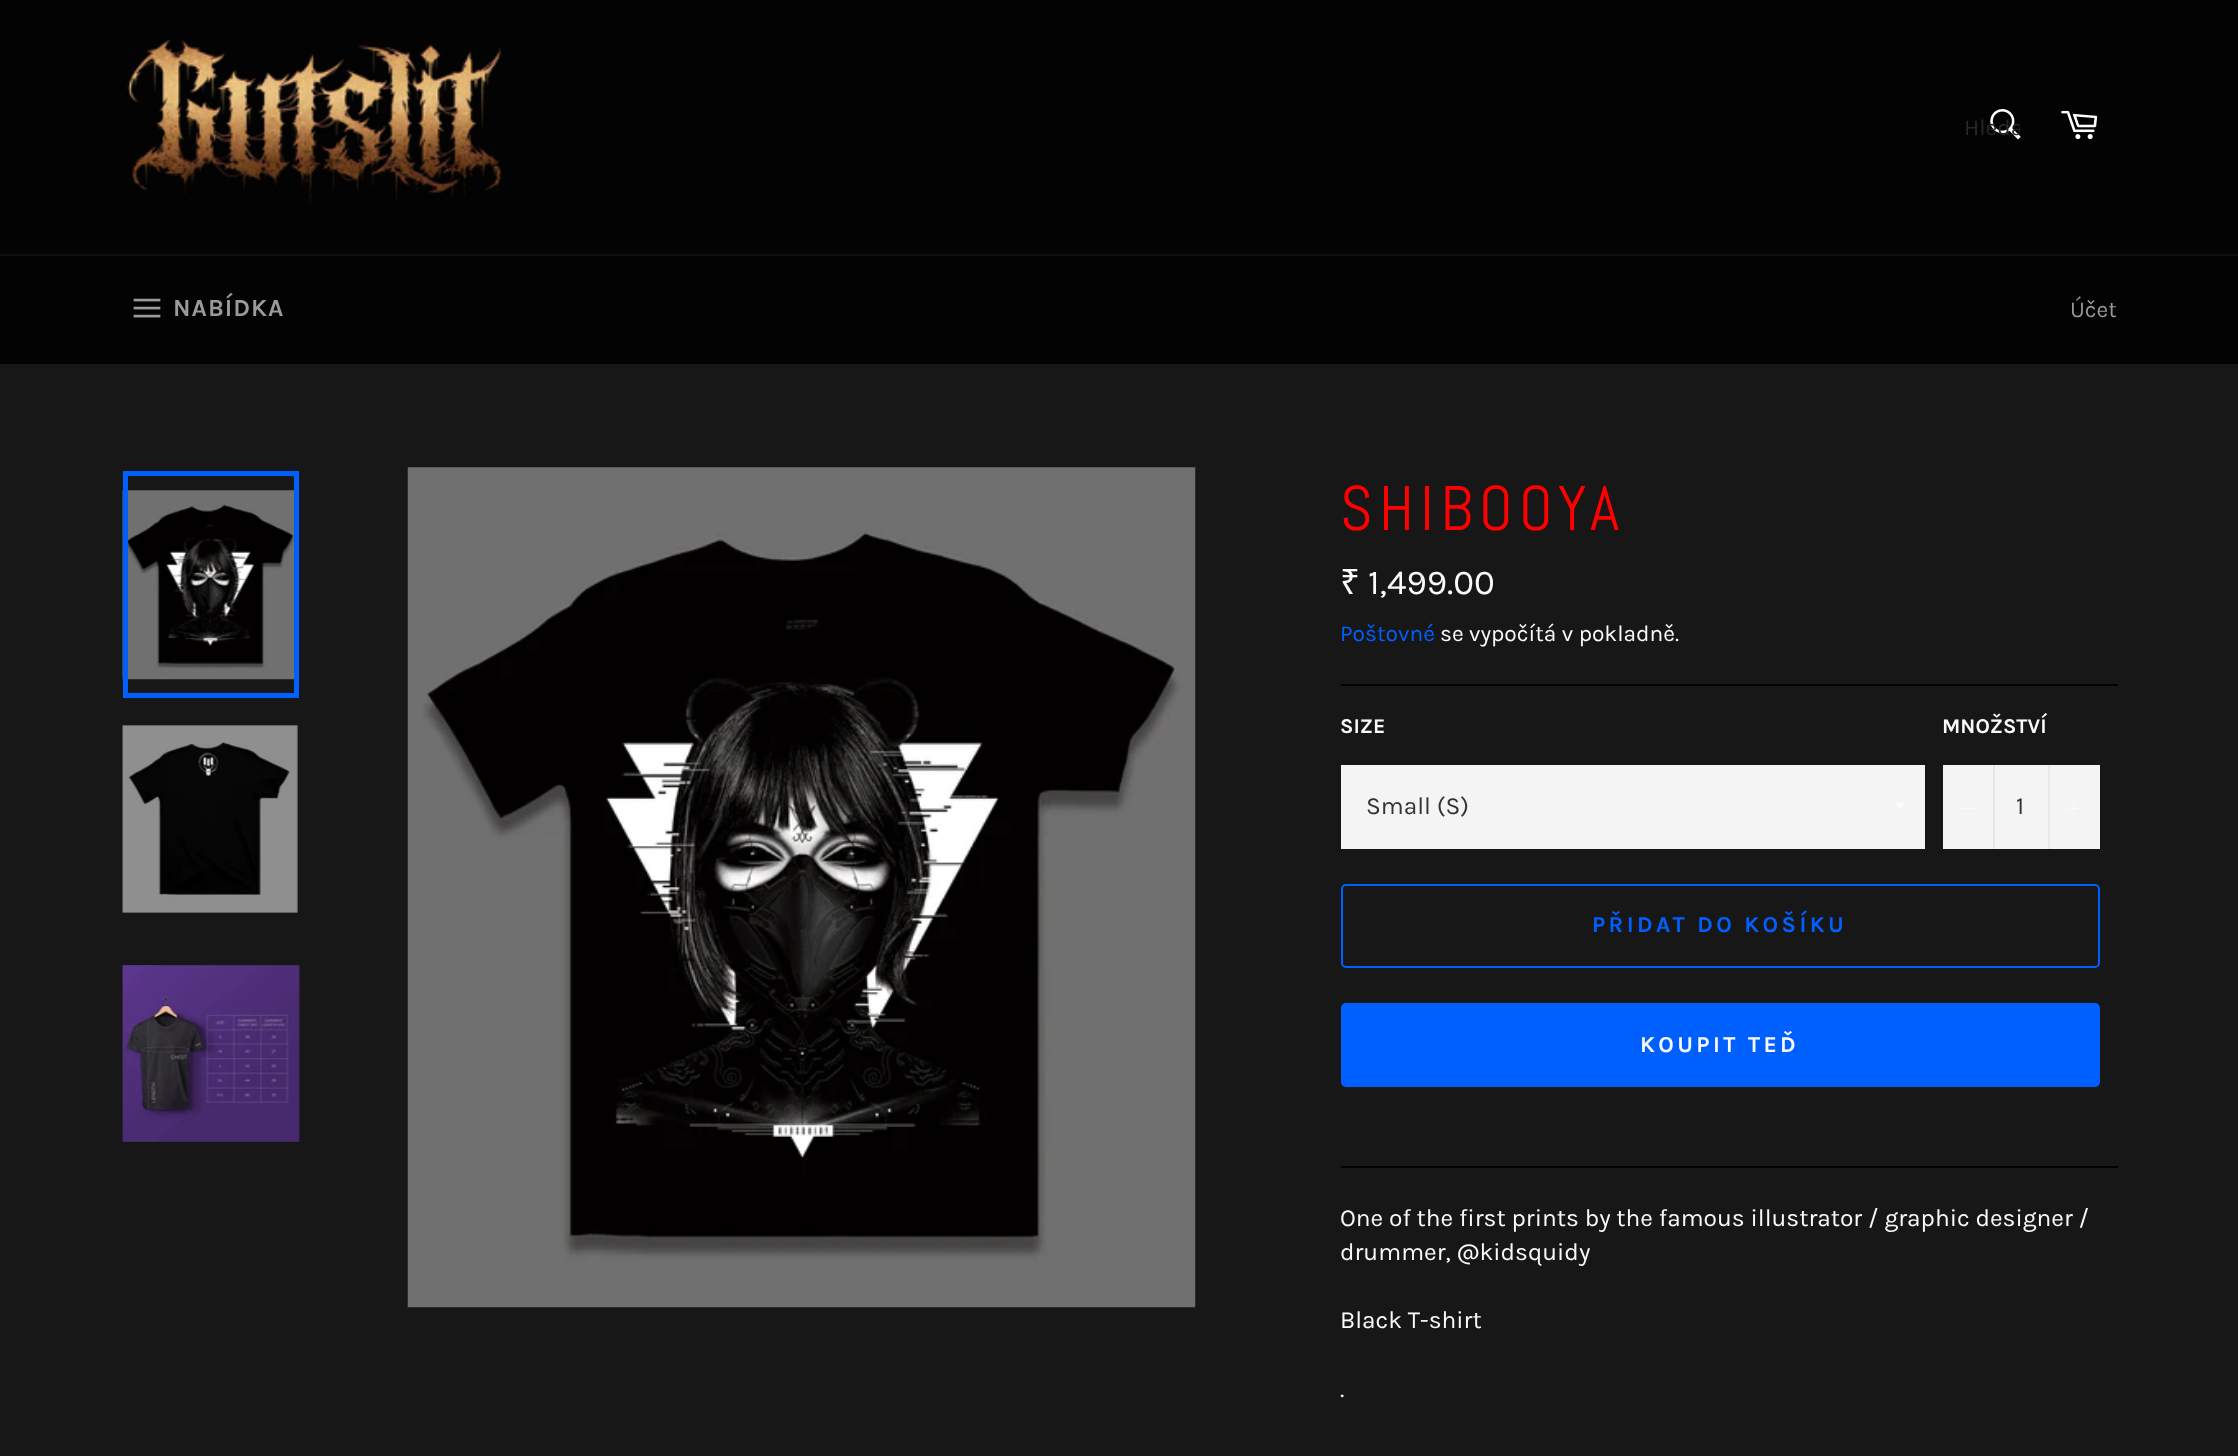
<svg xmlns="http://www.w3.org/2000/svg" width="2238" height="1456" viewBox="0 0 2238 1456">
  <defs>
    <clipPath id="clip1"><path d="M1894 802h14v8H1894z"/></clipPath>
    <clipPath id="clip2"><path d="M1964 114h56v26H1964z"/></clipPath>
  </defs>
  <rect width="100%" height="100%" fill="#030303"/>
  <image x="127" y="39" width="375" height="166" href="img/1.png"/>
  <image x="1990" y="109" width="31" height="31" href="img/2.png"/>
  <image x="2061" y="110" width="37" height="30" href="img/3.png"/>
  <path d="M0 254h2238v2H0z" fill="#101010"/>
  <image x="133" y="298" width="28" height="20" href="img/4.png"/>
  <path d="M0 364h2238v1092H0z" fill="#171717"/>
  <image x="122" y="490" width="172" height="190" href="img/5.png"/>
  <path d="M125.5 473.5h171v222H125.5z" fill="none" stroke="#0060ff" stroke-width="5"/>
  <image x="122" y="725" width="176" height="188" href="img/6.png"/>
  <image x="122" y="965" width="178" height="177" href="img/7.png"/>
  <image x="407" y="467" width="789" height="841" href="img/8.png"/>
  <path d="M1341 684h777v2H1341z" fill="#000"/>
  <path d="M1341 765h584v84H1341z" fill="#f4f4f4"/>
  <g clip-path="url(#clip1)">
    <path d="M1893.5 801.5L1899.5 809L1906 801.5Z" fill="#fafafa"/>
  </g>
  <path d="M1943 765h157v84H1943z" fill="#f4f4f4"/>
  <path d="M1993 765h2v84H1993z" fill="#e7e7e7"/>
  <path d="M1961 808h13v1H1961z" fill="#fafafa"/>
  <path d="M2048 765h2v84H2048z" fill="#e7e7e7"/>
  <image x="2067" y="802" width="13" height="13" href="img/9.png"/>
  <rect x="1342" y="885" width="757" height="82" rx="4" fill="none" stroke="#0060ff" stroke-width="2"/>
  <rect x="1341" y="1003" width="759" height="84" rx="5" fill="#0060ff"/>
  <path d="M1341 1166h777v2H1341z" fill="#000"/>
  <g clip-path="url(#clip2)">
    <text x="1964" y="135" font-family="Karla" font-size="22.75" fill="#282828">Hleda</text>
  </g>
  <text x="173" y="316" font-family="Karla" font-size="24.5" font-weight="bold" letter-spacing="1" fill="#9a9a9a">NABÍDKA</text>
  <text x="2070" y="317" font-family="Karla" font-size="22.75" fill="#9a9a9a">Účet</text>
  <text x="1340" y="530" font-family="Abel" font-size="63" letter-spacing="6.25" fill="#f00">SHIBOOYA</text>
  <text x="1340" y="594" font-family="Noto Sans" font-size="35" fill="#fafafa">₹</text>
  <text x="1368" y="594" font-family="Karla" font-size="35" fill="#fafafa">1,499.00</text>
  <text x="1340" y="641" font-family="Karla" font-size="22.75" fill="#0060ff">Poštovné</text>
  <text x="1440" y="641" font-family="Karla" font-size="22.75" fill="#fafafa">se vypočítá v pokladně.</text>
  <text x="1340" y="733" font-family="Karla" font-size="21" font-weight="bold" fill="#fafafa">SIZE</text>
  <text x="1366" y="814" font-family="Karla" font-size="24.5" fill="#333">Small (S)</text>
  <text x="1942" y="733" font-family="Karla" font-size="21" font-weight="bold" fill="#fafafa">MNOŽSTVÍ</text>
  <text x="2016" y="814" font-family="Karla" font-size="24.5" fill="#333">1</text>
  <text x="1592" y="932" font-family="Karla" font-size="22.75" font-weight="bold" letter-spacing="3.4" fill="#0060ff">PŘIDAT DO KOŠÍKU</text>
  <text x="1640" y="1052" font-family="Karla" font-size="22.75" font-weight="bold" letter-spacing="3.4" fill="#fafafa">KOUPIT TEĎ</text>
  <g font-family="Karla" font-size="24.5" fill="#fafafa">
    <text x="1340" y="1226">One of the first prints by the famous illustrator / graphic designer /</text>
    <text x="1340" y="1260">drummer, @kidsquidy</text>
    <text x="1340" y="1328">Black T-shirt</text>
    <text x="1340" y="1397">.</text>
  </g>
</svg>
